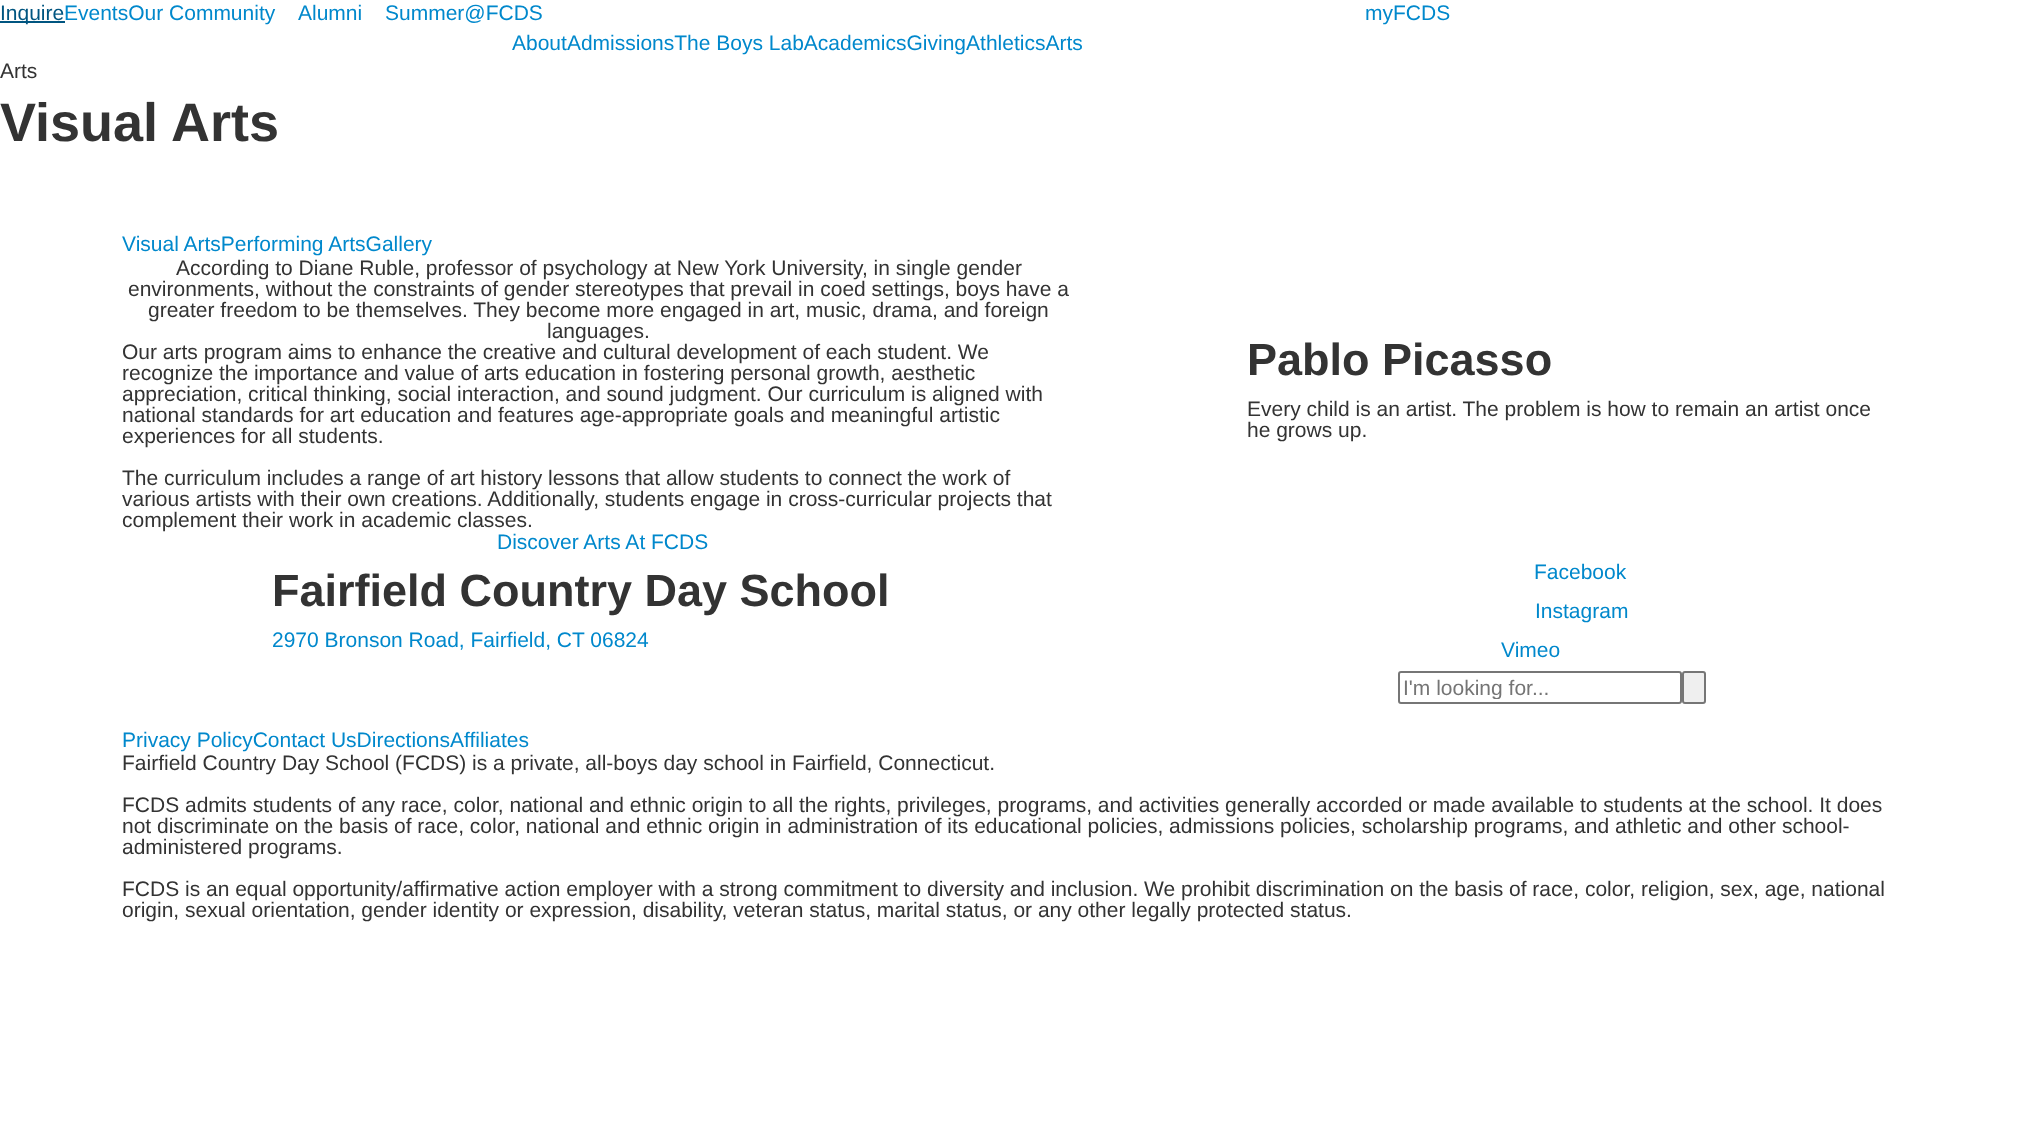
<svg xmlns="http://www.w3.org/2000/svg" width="2022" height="1122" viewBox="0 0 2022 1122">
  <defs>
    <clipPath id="clip1"><path d="M1404 675h272v24H1404z"/></clipPath>
  </defs>
  <rect width="100%" height="100%" fill="#fff"/>
  <path d="M0 21h65v2H0z" fill="#005580"/>
  <rect x="1399" y="672" width="282" height="31" rx="2" fill="none" stroke="#767676" stroke-width="2"/>
  <rect x="1683" y="672" width="22" height="31" rx="2" fill="#efefef" stroke="#767676" stroke-width="2"/>
  <text x="0" y="20" font-family="Liberation Sans" font-size="21" fill="#005580">Inquire</text>
  <g font-family="Liberation Sans" font-size="21" fill="#08c">
    <text x="64" y="20">EventsOur Community</text>
    <text x="298" y="20">Alumni</text>
    <text x="385" y="20">Summer@FCDS</text>
    <text x="1365" y="20">myFCDS</text>
    <text x="512" y="50">AboutAdmissionsThe Boys LabAcademicsGivingAthleticsArts</text>
  </g>
  <text x="0" y="78" font-family="Liberation Sans" font-size="21" fill="#333">Arts</text>
  <text x="0" y="141" font-family="Liberation Sans" font-size="54" font-weight="bold" fill="#333">Visual Arts</text>
  <text x="122" y="251" font-family="Liberation Sans" font-size="21" fill="#08c">Visual ArtsPerforming ArtsGallery</text>
  <g font-family="Liberation Sans" font-size="21" fill="#333">
    <text x="176" y="275">According to Diane Ruble, professor of psychology at New York University, in single gender</text>
    <text x="128" y="296">environments, without the constraints of gender stereotypes that prevail in coed settings, boys have a</text>
    <text x="148" y="317">greater freedom to be themselves. They become more engaged in art, music, drama, and foreign</text>
    <text x="547" y="338">languages.</text>
    <text x="122" y="359">Our arts program aims to enhance the creative and cultural development of each student. We</text>
    <text x="122" y="380">recognize the importance and value of arts education in fostering personal growth, aesthetic</text>
    <text x="122" y="401">appreciation, critical thinking, social interaction, and sound judgment. Our curriculum is aligned with</text>
    <text x="122" y="422">national standards for art education and features age-appropriate goals and meaningful artistic</text>
    <text x="122" y="443">experiences for all students.</text>
    <text x="122" y="485">The curriculum includes a range of art history lessons that allow students to connect the work of</text>
    <text x="122" y="506">various artists with their own creations. Additionally, students engage in cross-curricular projects that</text>
    <text x="122" y="527">complement their work in academic classes.</text>
  </g>
  <text x="1247" y="375" font-family="Liberation Sans" font-size="45" font-weight="bold" fill="#333">Pablo Picasso</text>
  <g font-family="Liberation Sans" font-size="21" fill="#333">
    <text x="1247" y="416">Every child is an artist. The problem is how to remain an artist once</text>
    <text x="1247" y="437">he grows up.</text>
  </g>
  <text x="497" y="549" font-family="Liberation Sans" font-size="21" fill="#08c">Discover Arts At FCDS</text>
  <text x="272" y="606" font-family="Liberation Sans" font-size="45" font-weight="bold" fill="#333">Fairfield Country Day School</text>
  <g font-family="Liberation Sans" font-size="21" fill="#08c">
    <text x="272" y="647">2970 Bronson Road, Fairfield, CT 06824</text>
    <text x="1534" y="579">Facebook</text>
    <text x="1535" y="618">Instagram</text>
    <text x="1501" y="657">Vimeo</text>
  </g>
  <g clip-path="url(#clip1)">
    <text x="1403" y="695" font-family="Liberation Sans" font-size="21" fill="#757575">I'm looking for...</text>
  </g>
  <text x="122" y="747" font-family="Liberation Sans" font-size="21" fill="#08c">Privacy PolicyContact UsDirectionsAffiliates</text>
  <g font-family="Liberation Sans" font-size="21" fill="#333">
    <text x="122" y="770">Fairfield Country Day School (FCDS) is a private, all-boys day school in Fairfield, Connecticut.</text>
    <text x="122" y="812">FCDS admits students of any race, color, national and ethnic origin to all the rights, privileges, programs, and activities generally accorded or made available to students at the school. It does</text>
    <text x="122" y="833">not discriminate on the basis of race, color, national and ethnic origin in administration of its educational policies, admissions policies, scholarship programs, and athletic and other school-</text>
    <text x="122" y="854">administered programs.</text>
    <text x="122" y="896">FCDS is an equal opportunity/affirmative action employer with a strong commitment to diversity and inclusion. We prohibit discrimination on the basis of race, color, religion, sex, age, national</text>
    <text x="122" y="917">origin, sexual orientation, gender identity or expression, disability, veteran status, marital status, or any other legally protected status.</text>
  </g>
</svg>
